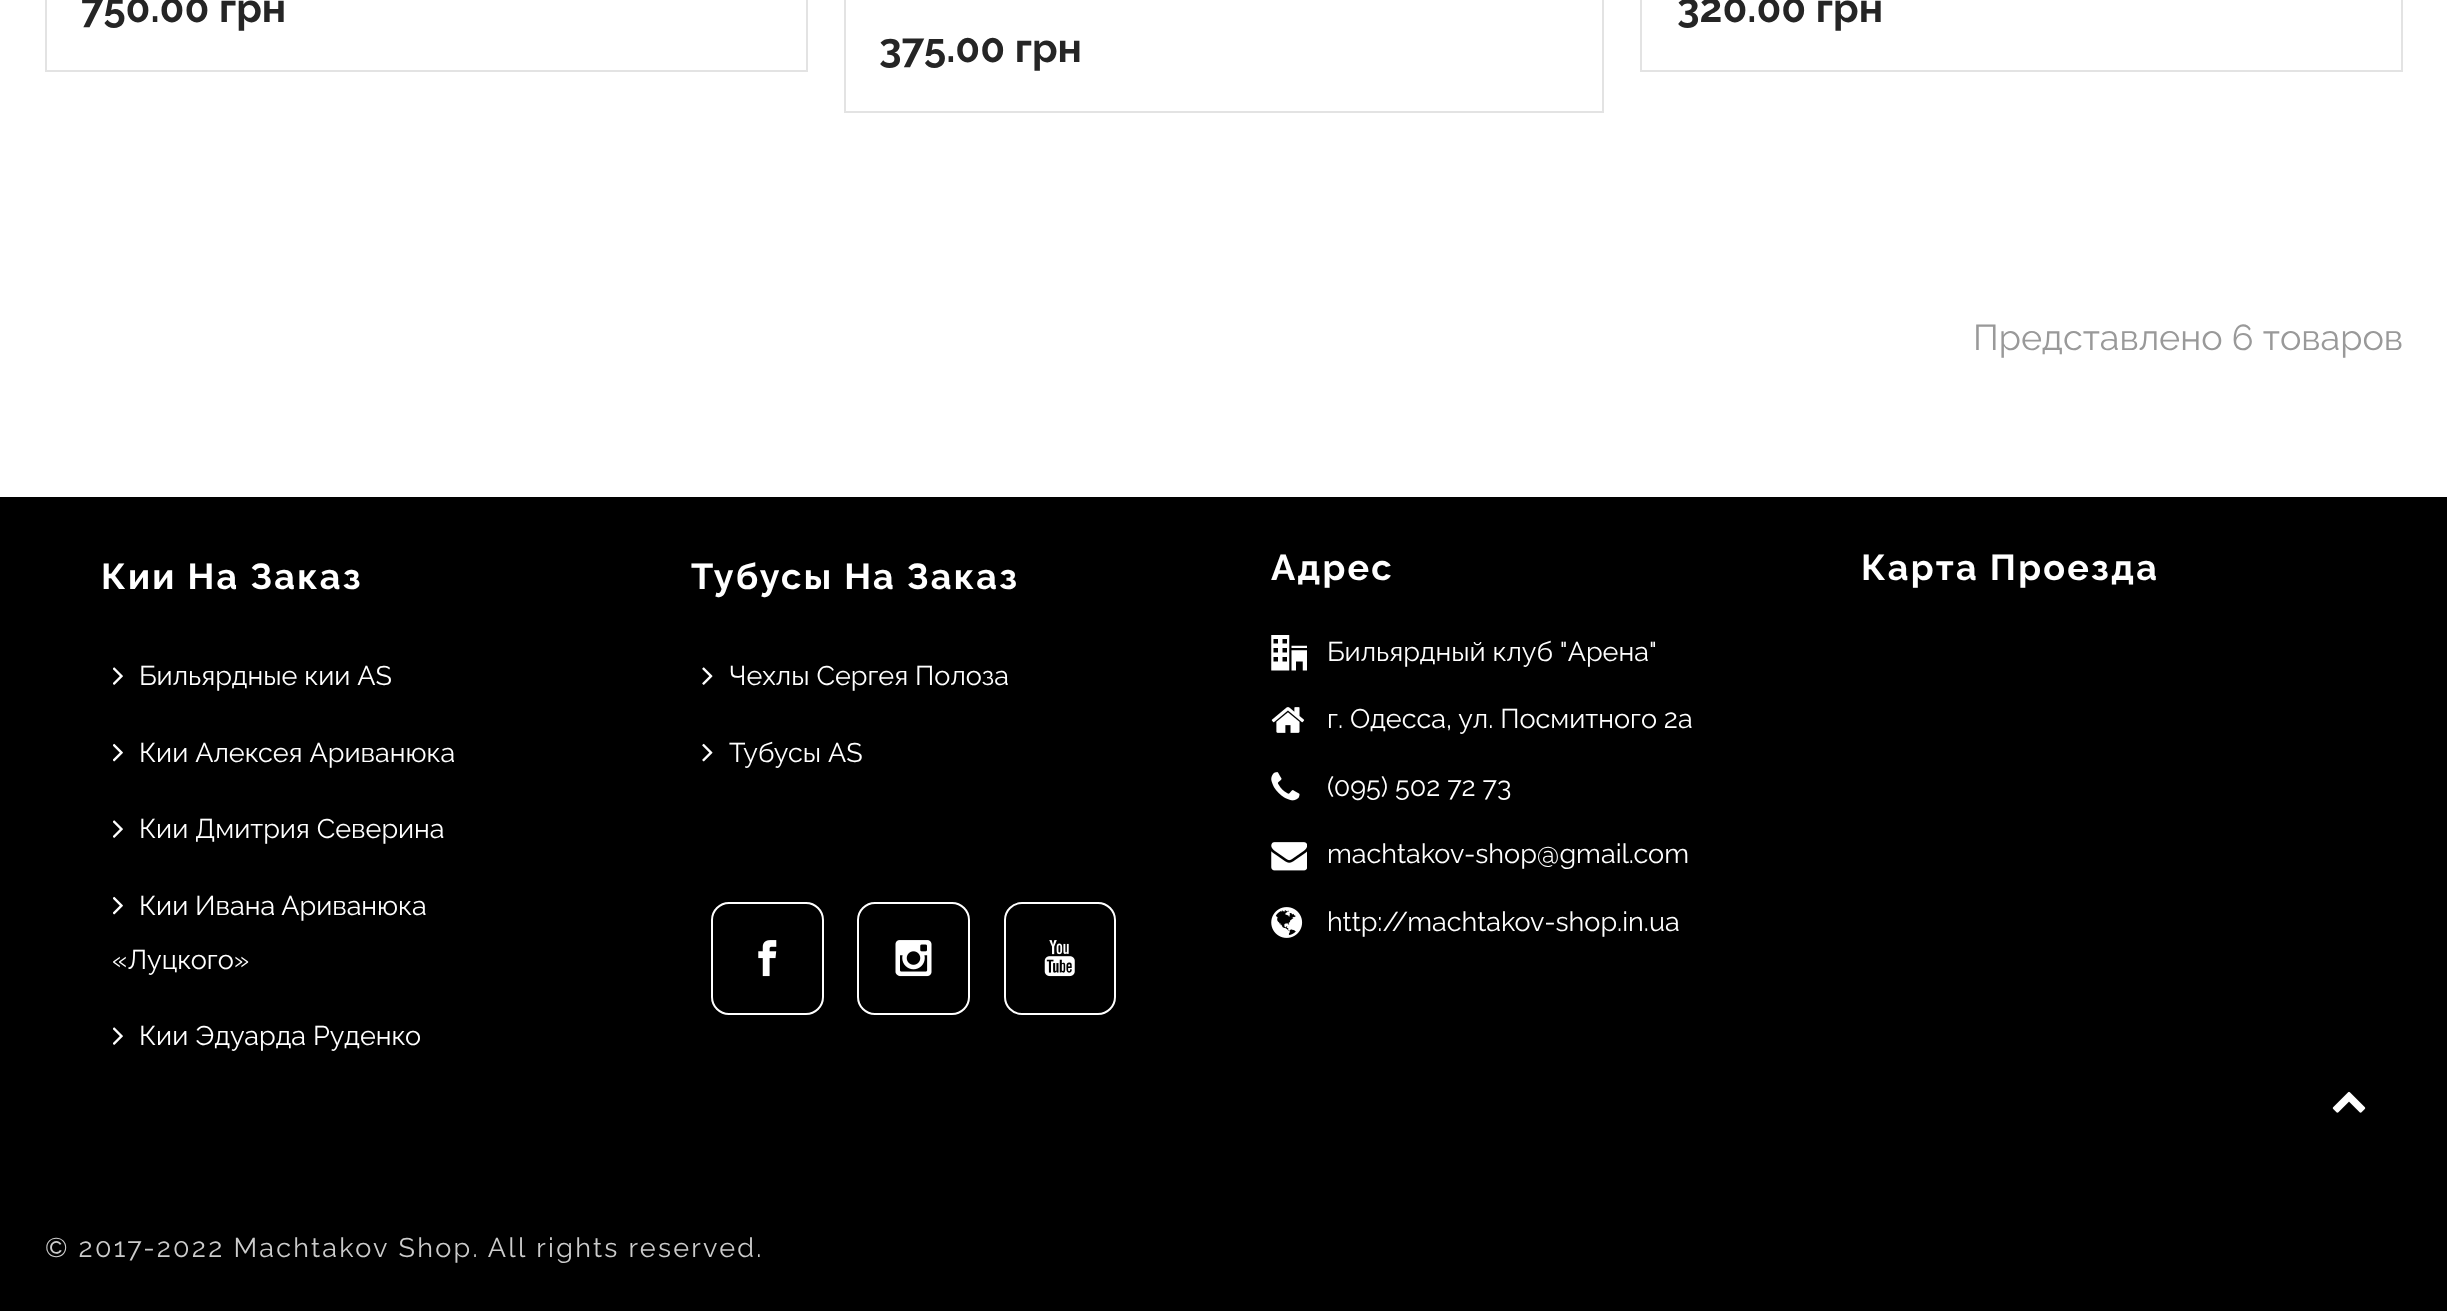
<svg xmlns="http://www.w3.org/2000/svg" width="2447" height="1311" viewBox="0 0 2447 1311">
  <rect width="100%" height="100%" fill="#000"/>
  <path d="M0 0h2447v497H0z" fill="#fff"/>
  <path d="M46 -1h761v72H46z" fill="none" stroke="#e3e3e3" stroke-width="2"/>
  <path d="M1641 -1h761v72H1641z" fill="none" stroke="#e3e3e3" stroke-width="2"/>
  <path d="M845 -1h758v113H845z" fill="none" stroke="#e3e3e3" stroke-width="2"/>
  <image x="113" y="667" width="10" height="18" href="img/1.png"/>
  <image x="113" y="743" width="10" height="19" href="img/2.png"/>
  <image x="113" y="820" width="10" height="18" href="img/1.png"/>
  <image x="113" y="896" width="10" height="19" href="img/2.png"/>
  <image x="113" y="1027" width="10" height="18" href="img/1.png"/>
  <image x="702" y="667" width="11" height="18" href="img/3.png"/>
  <image x="702" y="743" width="11" height="19" href="img/4.png"/>
  <rect x="712" y="903" width="111" height="111" rx="17" fill="none" stroke="#fff" stroke-width="2"/>
  <image x="758" y="940" width="19" height="37" href="img/5.png"/>
  <rect x="858" y="903" width="111" height="111" rx="17" fill="none" stroke="#fff" stroke-width="2"/>
  <image x="895" y="940" width="37" height="37" href="img/6.png"/>
  <rect x="1005" y="903" width="110" height="111" rx="17" fill="none" stroke="#fff" stroke-width="2"/>
  <image x="1044" y="940" width="31" height="37" href="img/7.png"/>
  <image x="1271" y="635" width="36" height="36" href="img/8.png"/>
  <image x="1271" y="707" width="34" height="26" href="img/9.png"/>
  <image x="1271" y="772" width="29" height="29" href="img/10.png"/>
  <image x="1271" y="842" width="36" height="29" href="img/11.png"/>
  <image x="1271" y="907" width="32" height="31" href="img/12.png"/>
  <image x="2332" y="1091" width="34" height="22" href="img/13.png"/>
  <g font-family="Raleway" font-size="40.5" font-weight="bold" fill="#252525">
    <text x="81" y="22">750.00 грн</text>
    <text x="1677" y="22">320.00 грн</text>
    <text x="879" y="62">375.00 грн</text>
  </g>
  <text x="1973" y="350" font-family="Raleway" font-size="36" fill="#999">Представлено 6 товаров</text>
  <text x="101" y="589" font-family="Raleway" font-size="36" font-weight="bold" letter-spacing="2.25" fill="#fff">Кии На Заказ</text>
  <g font-family="Raleway" font-size="27" fill="#fff">
    <text x="139" y="685">Бильярдные кии AS</text>
    <text x="139" y="762" word-spacing="1">Кии Алексея Ариванюка</text>
    <text x="139" y="838">Кии Дмитрия Северина</text>
    <text x="139" y="915">Кии Ивана Ариванюка</text>
    <text x="112" y="969">«Луцкого»</text>
    <text x="139" y="1045">Кии Эдуарда Руденко</text>
  </g>
  <text x="691" y="589" font-family="Raleway" font-size="36" font-weight="bold" letter-spacing="2.25" fill="#fff">Тубусы На Заказ</text>
  <g font-family="Raleway" font-size="27" fill="#fff">
    <text x="729" y="685">Чехлы Сергея Полоза</text>
    <text x="729" y="762">Тубусы AS</text>
  </g>
  <text x="1271" y="580" font-family="Raleway" font-size="36" font-weight="bold" letter-spacing="2.25" fill="#fff">Адрес</text>
  <g font-family="Raleway" font-size="27" fill="#fff">
    <text x="1327" y="661">Бильярдный клуб "Арена"</text>
    <text x="1327" y="728">г. Одесса, ул. Посмитного 2а</text>
    <text x="1327" y="796">(095) 502 72 73</text>
    <text x="1327" y="863">machtakov-shop@gmail.com</text>
    <text x="1327" y="931">http://machtakov-shop.in.ua</text>
  </g>
  <text x="1861" y="580" font-family="Raleway" font-size="36" font-weight="bold" letter-spacing="2.25" fill="#fff">Карта Проезда</text>
  <text x="45" y="1257" word-spacing="-0.25" font-family="Raleway" font-size="27" letter-spacing="2.25" fill="#ccc">© 2017-2022 Machtakov Shop. All rights reserved.</text>
</svg>
